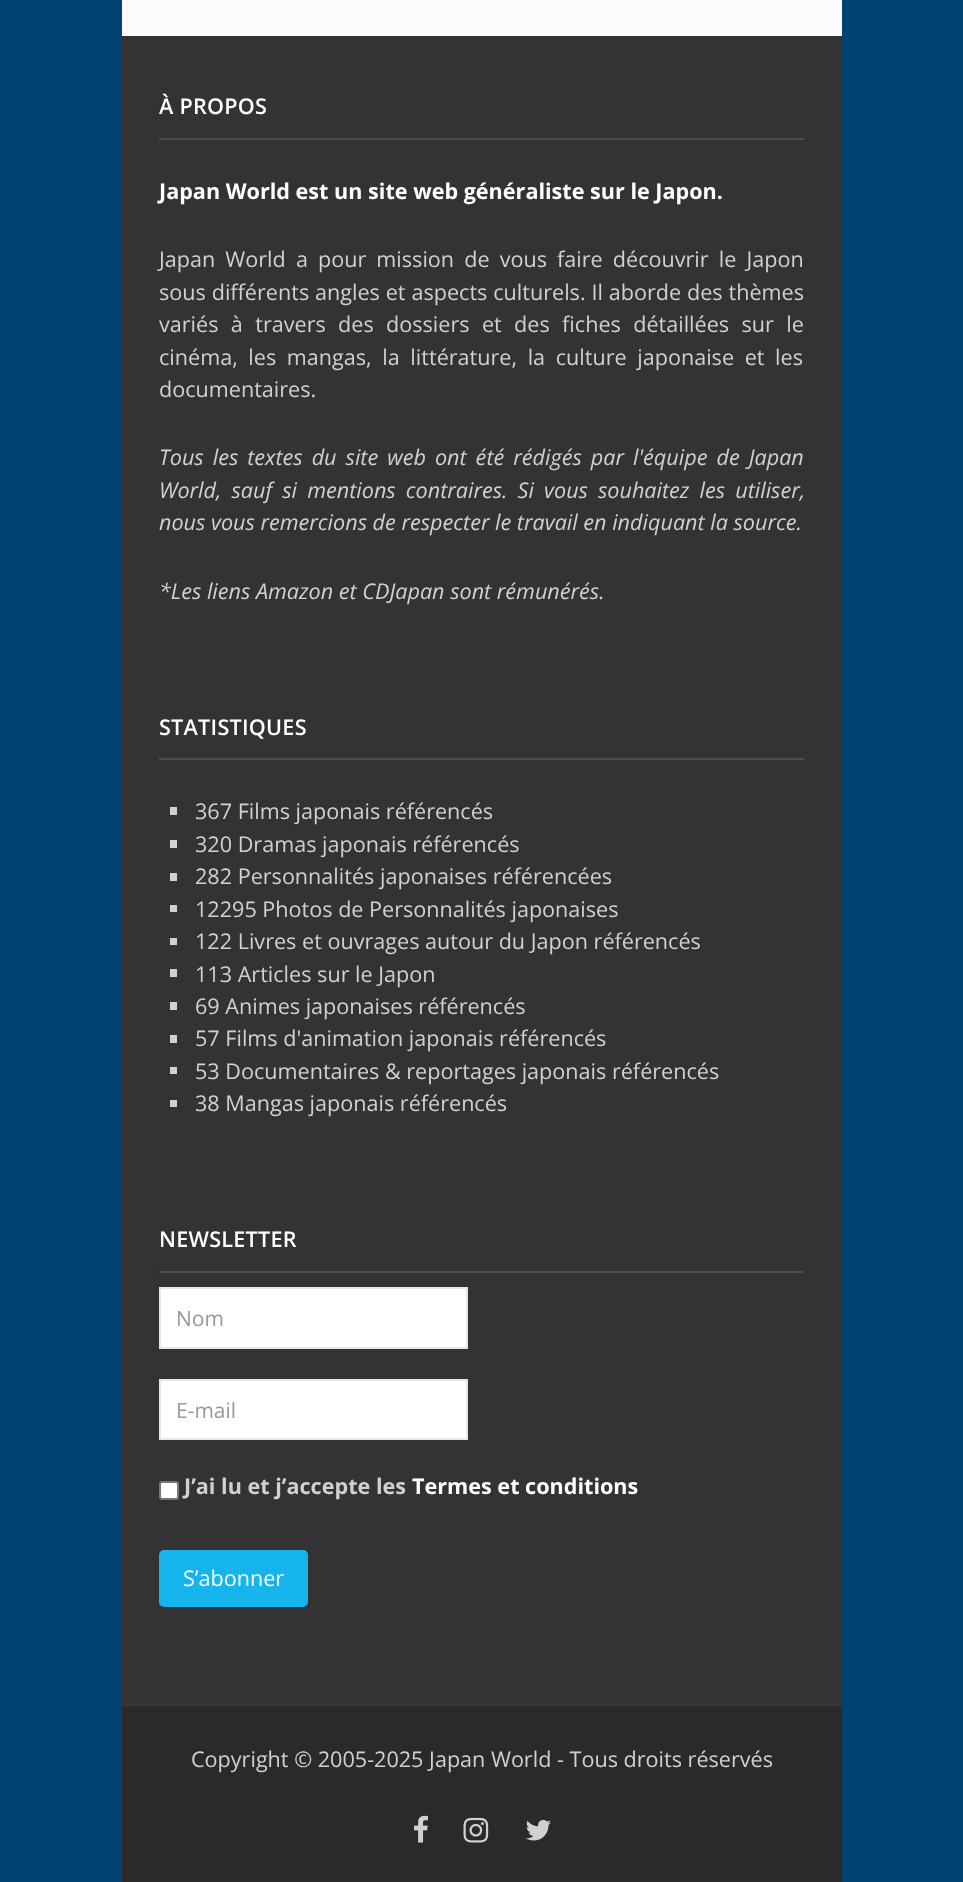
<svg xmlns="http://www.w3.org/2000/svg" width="963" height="1882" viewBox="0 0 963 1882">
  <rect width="100%" height="100%" fill="#004272"/>
  <path d="M122 0h720v36H122z" fill="#fbfbfb"/>
  <path d="M122 36h720v1668H122z" fill="#333"/>
  <path d="M159 138h645v2H159z" fill="#4d4d4d"/>
  <path d="M159 758h645v2H159z" fill="#4d4d4d"/>
  <path d="M170 807h7v8H170z" fill="#d1d1d1"/>
  <path d="M170 840h7v8H170z" fill="#d1d1d1"/>
  <path d="M170 873h7v8H170z" fill="#d1d1d1"/>
  <path d="M170 905h7v7H170z" fill="#d1d1d1"/>
  <path d="M170 938h7v7H170z" fill="#d1d1d1"/>
  <path d="M170 969h7v8H170z" fill="#d1d1d1"/>
  <path d="M170 1002h7v8H170z" fill="#d1d1d1"/>
  <path d="M170 1035h7v8H170z" fill="#d1d1d1"/>
  <path d="M170 1067h7v7H170z" fill="#d1d1d1"/>
  <path d="M170 1100h7v7H170z" fill="#d1d1d1"/>
  <path d="M159 1271h645v2H159z" fill="#4d4d4d"/>
  <path d="M160 1288h307v60H160z" fill="#fff" stroke="#e7e7e7" stroke-width="2"/>
  <path d="M160 1380h307v59H160z" fill="#fff" stroke="#e7e7e7" stroke-width="2"/>
  <rect x="160" y="1482" width="18" height="17" rx="2" fill="#fff" stroke="#767676" stroke-width="2"/>
  <rect x="159" y="1550" width="149" height="57" rx="5" fill="#15b4ed"/>
  <path d="M122 1706h720v176H122z" fill="#2a2a2a"/>
  <path d="M122 1704h720v2H122z" fill="#373737"/>
  <image x="414" y="1815" width="14" height="28" href="img/1.png"/>
  <image x="463" y="1817" width="26" height="26" href="img/2.png"/>
  <image x="526" y="1819" width="25" height="22" href="img/3.png"/>
  <text x="159" y="114" font-family="Open Sans" font-size="21.6" font-weight="600" letter-spacing="0.25" fill="#fff">À PROPOS</text>
  <text x="159" y="199" font-family="Open Sans" font-size="21.6" font-weight="bold" fill="#fff">Japan World est un site web généraliste sur le Japon.</text>
  <g font-family="Open Sans" font-size="21.6" fill="#d1d1d1">
    <text x="159" y="267" word-spacing="4.5">Japan World a pour mission de vous faire découvrir le Japon</text>
    <text x="159" y="300" word-spacing="0.25">sous différents angles et aspects culturels. Il aborde des thèmes</text>
    <text x="159" y="332" word-spacing="6.75">variés à travers des dossiers et des fiches détaillées sur le</text>
    <text x="159" y="365" word-spacing="5">cinéma, les mangas, la littérature, la culture japonaise et les</text>
    <text x="159" y="397">documentaires.</text>
  </g>
  <g font-family="Open Sans" font-size="21.6" font-style="italic" fill="#d1d1d1">
    <text x="159" y="465" word-spacing="3.4">Tous les textes du site web ont été rédigés par l'équipe de Japan</text>
    <text x="159" y="498" word-spacing="4.5">World, sauf si mentions contraires. Si vous souhaitez les utiliser,</text>
    <text x="159" y="530">nous vous remercions de respecter le travail en indiquant la source.</text>
    <text x="159" y="599">*Les liens Amazon et CDJapan sont rémunérés.</text>
  </g>
  <text x="159" y="735" font-family="Open Sans" font-size="21.6" font-weight="600" letter-spacing="0.25" fill="#fff">STATISTIQUES</text>
  <g font-family="Open Sans" font-size="21.6" fill="#d1d1d1">
    <text x="195" y="819">367 Films japonais référencés</text>
    <text x="195" y="852">320 Dramas japonais référencés</text>
    <text x="195" y="884">282 Personnalités japonaises référencées</text>
    <text x="195" y="917">12295 Photos de Personnalités japonaises</text>
    <text x="195" y="949">122 Livres et ouvrages autour du Japon référencés</text>
    <text x="195" y="982">113 Articles sur le Japon</text>
    <text x="195" y="1014">69 Animes japonaises référencés</text>
    <text x="195" y="1046">57 Films d'animation japonais référencés</text>
    <text x="195" y="1079">53 Documentaires &amp; reportages japonais référencés</text>
    <text x="195" y="1111">38 Mangas japonais référencés</text>
  </g>
  <text x="159" y="1247" font-family="Open Sans" font-size="21.6" font-weight="600" letter-spacing="0.25" fill="#fff">NEWSLETTER</text>
  <g font-family="Open Sans" font-size="21" fill="#999">
    <text x="176" y="1326">Nom</text>
    <text x="176" y="1418">E-mail</text>
  </g>
  <text x="184" y="1494" font-family="Open Sans" font-size="21.6" font-weight="bold" fill="#d1d1d1">J’ai lu et j’accepte les</text>
  <text x="412" y="1494" font-family="Open Sans" font-size="21.6" font-weight="bold" fill="#fff">Termes et conditions</text>
  <text x="183" y="1586" font-family="Open Sans" font-size="21.6" fill="#fff">S’abonner</text>
  <text x="191" y="1767" font-family="Open Sans" font-size="21.6" fill="#d1d1d1">Copyright © 2005-2025 Japan World - Tous droits réservés</text>
</svg>
